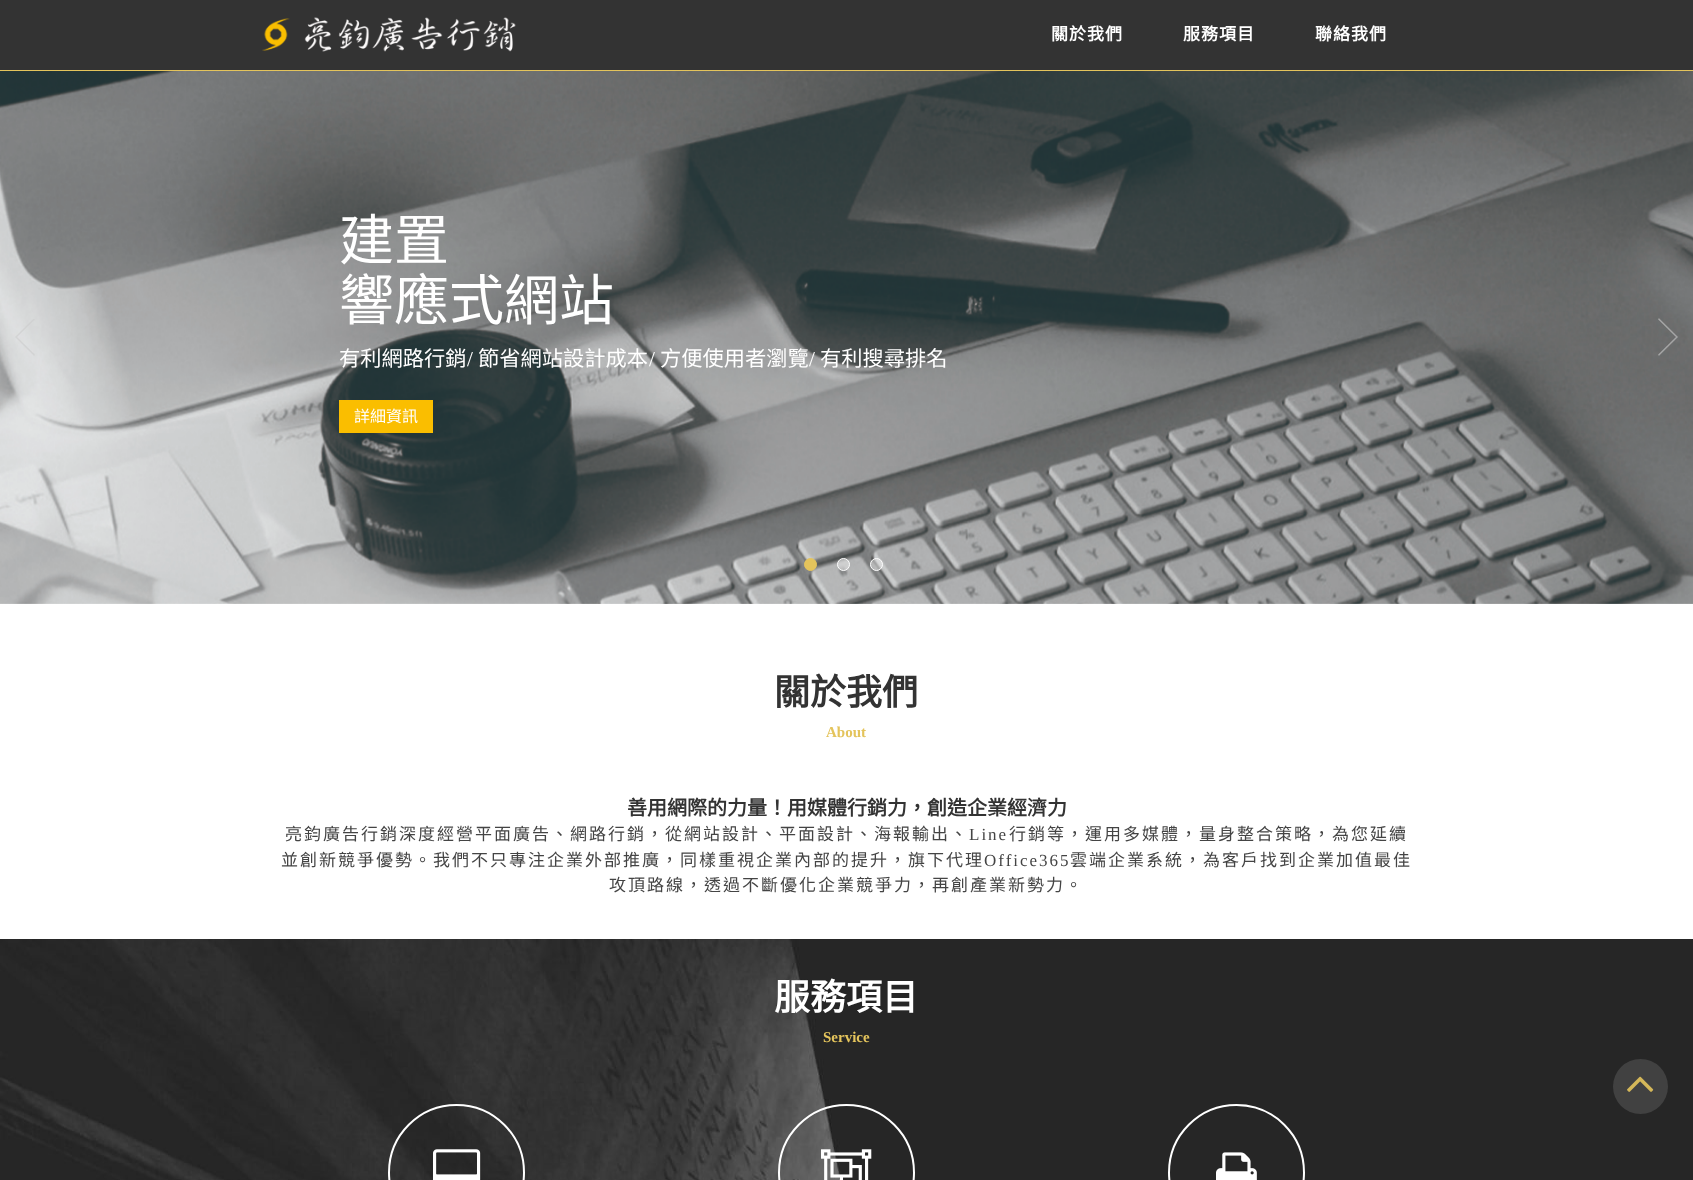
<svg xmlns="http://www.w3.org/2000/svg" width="1693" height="1180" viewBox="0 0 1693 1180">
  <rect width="100%" height="100%" fill="#fff"/>
  <path d="M0 0h1693v70H0z" fill="#333"/>
  <path d="M0 70h1693v1H0z" fill="#e4c45c"/>
  <image x="262" y="17" width="254" height="35" href="img/1.png"/>
  <image x="0" y="71" width="1693" height="533" href="img/2.png"/>
  <path d="M339 400h94v33H339z" fill="#fabe00"/>
  <image x="15" y="319" width="20" height="37" href="img/3.png"/>
  <image x="1658" y="318" width="20" height="38" href="img/4.png"/>
  <circle cx="810.5" cy="564.5" r="6" fill="#e4c45c" stroke="#e4c45c"/>
  <circle cx="843.5" cy="564.5" r="6" fill="#eaeaea80" stroke="#fff"/>
  <circle cx="876.5" cy="564.5" r="6" fill="#eaeaea80" stroke="#fff"/>
  <image x="0" y="939" width="1693" height="241" href="img/5.png"/>
  <circle cx="456.5" cy="1172.5" r="67.5" fill="none" stroke="#fff" stroke-width="2"/>
  <image x="433" y="1149" width="48" height="31" href="img/6.png"/>
  <circle cx="846.5" cy="1172.5" r="67.5" fill="none" stroke="#fff" stroke-width="2"/>
  <image x="821" y="1149" width="51" height="31" href="img/7.png"/>
  <circle cx="1236.5" cy="1172.5" r="67.5" fill="none" stroke="#fff" stroke-width="2"/>
  <image x="1216" y="1152" width="41" height="28" href="img/8.png"/>
  <circle cx="1640.5" cy="1086.5" r="27.5" fill="#414141"/>
  <image x="1627" y="1076" width="27" height="16" href="img/9.png"/>
  <g font-family="Noto Sans CJK TC" font-size="17" font-weight="bold" letter-spacing="1" fill="#fff">
    <text x="1051" y="40">關於我們</text>
    <text x="1183" y="40">服務項目</text>
    <text x="1315" y="40">聯絡我們</text>
  </g>
  <g font-family="Noto Sans CJK TC" font-size="55" fill="#fff">
    <text x="339" y="260">建置</text>
    <text x="339" y="320">響應式網站</text>
  </g>
  <text x="339" y="366" font-family="Noto Sans CJK TC" font-size="21.25" fill="#fff">有利網路行銷</text>
  <text x="467" y="366" font-family="Liberation Serif" font-size="21.25" fill="#fff">/</text>
  <text x="478" y="366" font-family="Noto Sans CJK TC" font-size="21.25" fill="#fff">節省網站設計成本</text>
  <text x="649" y="366" font-family="Liberation Serif" font-size="21.25" fill="#fff">/</text>
  <text x="660" y="366" font-family="Noto Sans CJK TC" font-size="21.25" fill="#fff">方便使用者瀏覽</text>
  <text x="809" y="366" font-family="Liberation Serif" font-size="21.25" fill="#fff">/</text>
  <text x="820" y="366" font-family="Noto Sans CJK TC" font-size="21.25" fill="#fff">有利搜尋排名</text>
  <text x="354" y="422" font-family="Noto Sans CJK TC" font-size="16" fill="#fff">詳細資訊</text>
  <text x="774" y="705" font-family="Noto Sans CJK TC" font-size="36" font-weight="bold" fill="#333">關於我們</text>
  <text x="826" y="737" font-family="Liberation Serif" font-size="15" font-weight="bold" fill="#e4c45c">About</text>
  <text x="627" y="815" font-family="Noto Sans CJK TC" font-size="20" font-weight="bold" fill="#333">善用網際的力量！用媒體行銷力，創造企業經濟力</text>
  <text x="285" y="840" font-family="Noto Sans CJK TC" font-size="17" letter-spacing="2" fill="#444">亮鈞廣告行銷深度經營平面廣告、網路行銷，從網站設計、平面設計、海報輸出、</text>
  <text x="969" y="840" font-family="Liberation Serif" font-size="17" letter-spacing="2" fill="#444">Line</text>
  <g font-family="Noto Sans CJK TC" font-size="17" letter-spacing="2" fill="#444">
    <text x="1009" y="840">行銷等，運用多媒體，量身整合策略，為您延續</text>
    <text x="281" y="866">並創新競爭優勢。我們不只專注企業外部推廣，同樣重視企業內部的提升，旗下代理</text>
  </g>
  <text x="984" y="866" font-family="Liberation Serif" font-size="17" letter-spacing="2" fill="#444">Office365</text>
  <g font-family="Noto Sans CJK TC" font-size="17" letter-spacing="2" fill="#444">
    <text x="1070" y="866">雲端企業系統，為客戶找到企業加值最佳</text>
    <text x="609" y="891">攻頂路線，透過不斷優化企業競爭力，再創產業新勢力。</text>
  </g>
  <text x="774" y="1010" font-family="Noto Sans CJK TC" font-size="36" font-weight="bold" fill="#fff">服務項目</text>
  <text x="823" y="1042" font-family="Liberation Serif" font-size="15" font-weight="bold" fill="#e4c45c">Service</text>
</svg>
